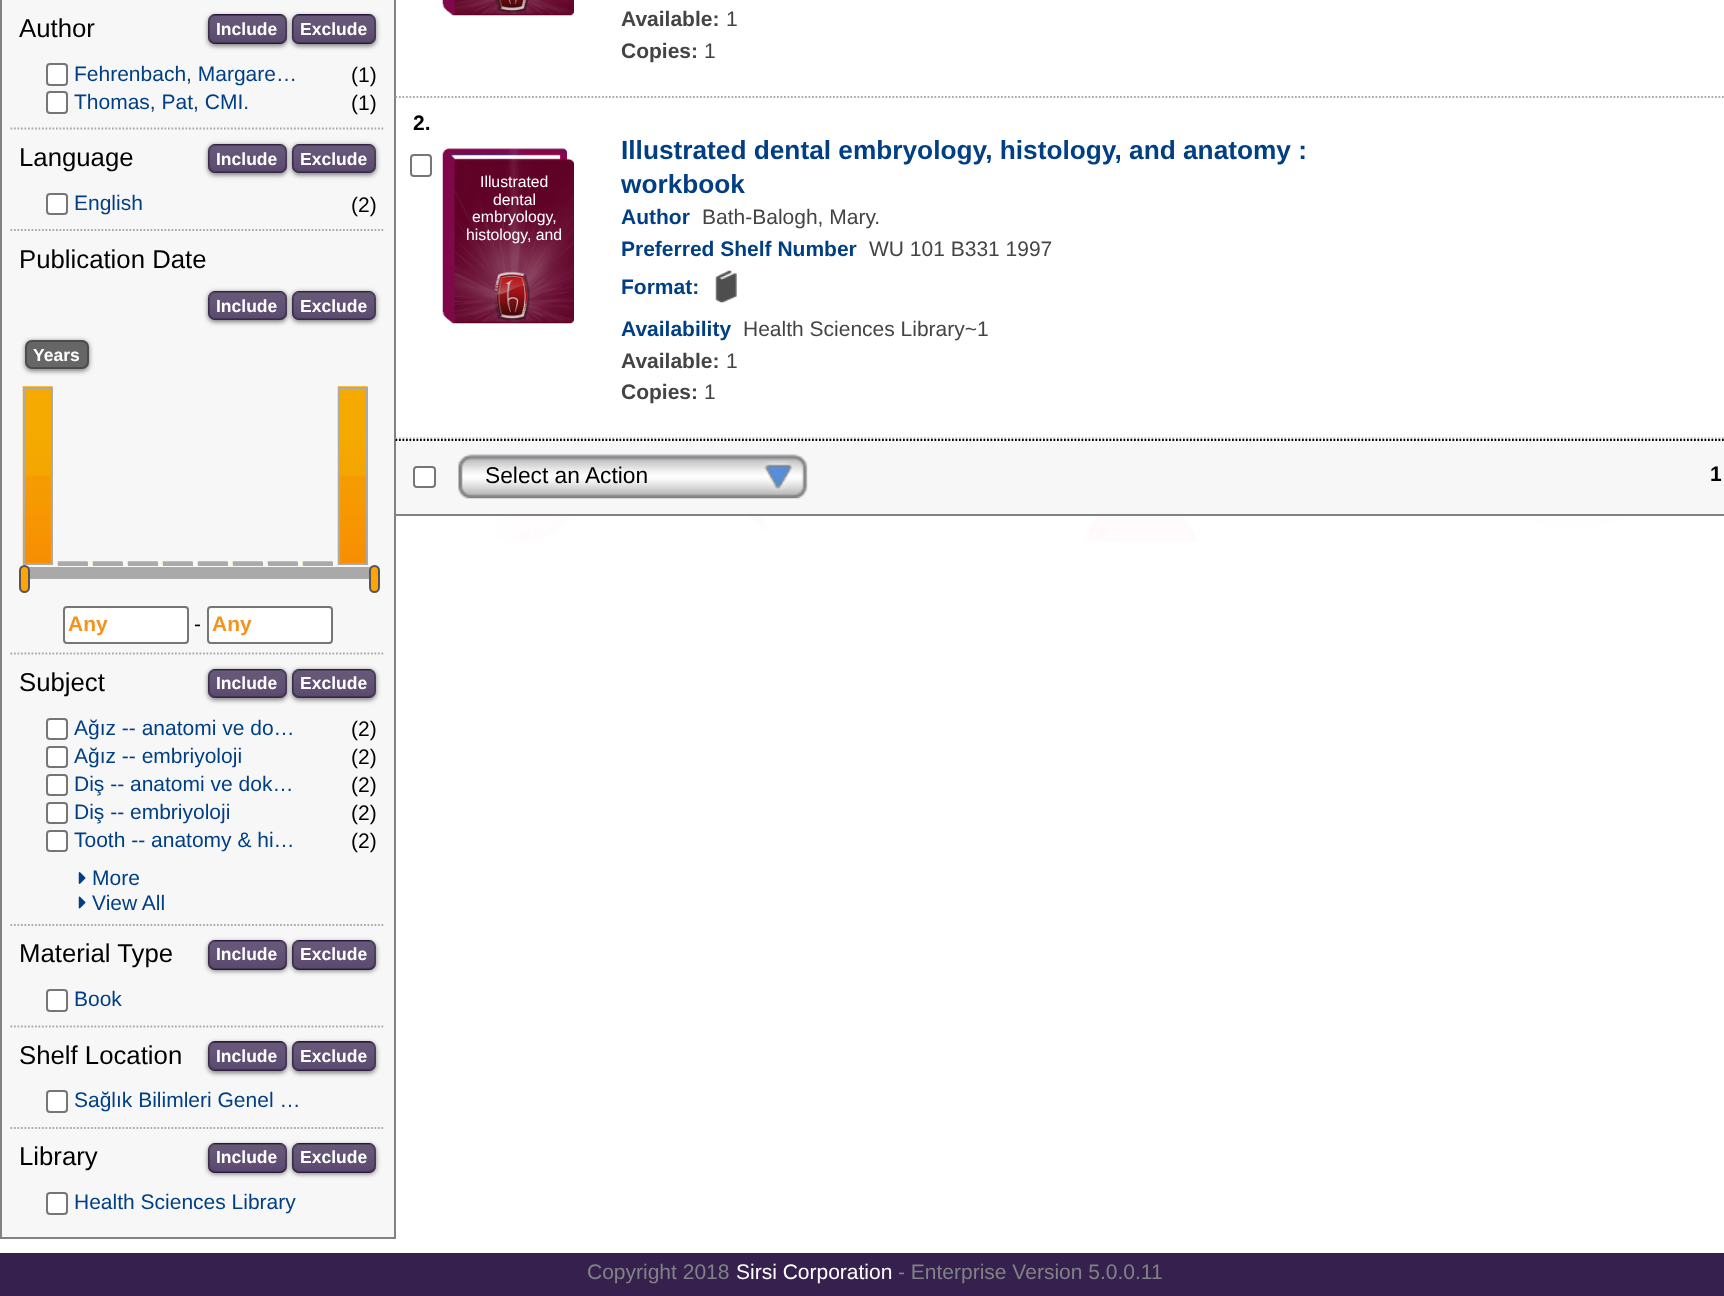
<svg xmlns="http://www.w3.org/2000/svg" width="1724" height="1296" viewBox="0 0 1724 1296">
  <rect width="100%" height="100%" fill="#fff"/>
  <image x="495" y="516" width="1229" height="26" href="img/1.png"/>
  <path d="M1 -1h394v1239H1z" fill="#f7f7f7" stroke="#808285" stroke-width="2"/>
  <rect x="208" y="16" width="79" height="30" rx="7" fill="#00000080" filter="blur(2.5px)"/>
  <rect x="208" y="14" width="79" height="30" rx="7" fill="#36214e"/>
  <image x="208" y="15" width="79" height="28" href="img/2.png"/>
  <rect x="209" y="15" width="77" height="28" rx="6" fill="none" stroke="#00000040" stroke-width="2"/>
  <rect x="292" y="16" width="84" height="30" rx="7" fill="#00000080" filter="blur(2.5px)"/>
  <rect x="292" y="14" width="84" height="30" rx="7" fill="#36214e"/>
  <image x="292" y="15" width="84" height="28" href="img/3.png"/>
  <rect x="293" y="15" width="82" height="28" rx="6" fill="none" stroke="#00000040" stroke-width="2"/>
  <rect x="47" y="64" width="20" height="21" rx="3" fill="#fff" stroke="#767676" stroke-width="2"/>
  <rect x="47" y="92" width="20" height="21" rx="3" fill="#fff" stroke="#767676" stroke-width="2"/>
  <path d="M10.5 128.5H385" fill="none" stroke="#aaa" stroke-width="1.8" stroke-dasharray="1.75 1.75"/>
  <rect x="208" y="145" width="79" height="30" rx="7" fill="#00000080" filter="blur(2.5px)"/>
  <rect x="208" y="144" width="79" height="29" rx="7" fill="#36214e"/>
  <image x="208" y="144" width="79" height="29" href="img/4.png"/>
  <rect x="209" y="145" width="77" height="27" rx="6" fill="none" stroke="#00000040" stroke-width="2"/>
  <rect x="292" y="145" width="84" height="30" rx="7" fill="#00000080" filter="blur(2.5px)"/>
  <rect x="292" y="144" width="84" height="29" rx="7" fill="#36214e"/>
  <image x="292" y="144" width="84" height="29" href="img/5.png"/>
  <rect x="293" y="145" width="82" height="27" rx="6" fill="none" stroke="#00000040" stroke-width="2"/>
  <rect x="47" y="194" width="20" height="20" rx="3" fill="#fff" stroke="#767676" stroke-width="2"/>
  <path d="M10.5 230H385" fill="none" stroke="#aaa" stroke-width="1.8" stroke-dasharray="1.75 1.75"/>
  <rect x="208" y="292" width="79" height="30" rx="7" fill="#00000080" filter="blur(2.5px)"/>
  <rect x="208" y="291" width="79" height="29" rx="7" fill="#36214e"/>
  <image x="208" y="291" width="79" height="29" href="img/4.png"/>
  <rect x="209" y="292" width="77" height="27" rx="6" fill="none" stroke="#00000040" stroke-width="2"/>
  <rect x="292" y="292" width="84" height="30" rx="7" fill="#00000080" filter="blur(2.5px)"/>
  <rect x="292" y="291" width="84" height="29" rx="7" fill="#36214e"/>
  <image x="292" y="291" width="84" height="29" href="img/5.png"/>
  <rect x="293" y="292" width="82" height="27" rx="6" fill="none" stroke="#00000040" stroke-width="2"/>
  <rect x="25" y="341" width="64" height="30" rx="7" fill="#00000080" filter="blur(2.5px)"/>
  <rect x="25" y="340" width="64" height="29" rx="7" fill="#666"/>
  <rect x="26" y="341" width="62" height="27" rx="6" fill="none" stroke="#00000040" stroke-width="2"/>
  <image x="22" y="386" width="31" height="179" href="img/6.png"/>
  <path d="M24 388h28v176H24z" fill="none" stroke="#aaa" stroke-width="2"/>
  <image x="57" y="561" width="31" height="4" href="img/7.png"/>
  <path d="M58 562h30v4H58z" fill="#aaa"/>
  <image x="92" y="561" width="31" height="4" href="img/7.png"/>
  <path d="M93 562h30v4H93z" fill="#aaa"/>
  <image x="127" y="561" width="31" height="4" href="img/7.png"/>
  <path d="M128 562h30v4H128z" fill="#aaa"/>
  <image x="162" y="561" width="31" height="4" href="img/7.png"/>
  <path d="M163 562h30v4H163z" fill="#aaa"/>
  <image x="197" y="561" width="31" height="4" href="img/7.png"/>
  <path d="M198 562h30v4H198z" fill="#aaa"/>
  <image x="232" y="561" width="31" height="4" href="img/7.png"/>
  <path d="M233 562h30v4H233z" fill="#aaa"/>
  <image x="267" y="561" width="31" height="4" href="img/7.png"/>
  <path d="M268 562h30v4H268z" fill="#aaa"/>
  <image x="302" y="561" width="31" height="4" href="img/7.png"/>
  <path d="M303 562h30v4H303z" fill="#aaa"/>
  <image x="337" y="386" width="31" height="179" href="img/6.png"/>
  <path d="M339 388h28v176H339z" fill="none" stroke="#aaa" stroke-width="2"/>
  <rect x="22" y="568" width="352" height="10" rx="5" fill="none" stroke="#aaa" stroke-width="2"/>
  <path d="M29 569h341v8H29z" fill="#a9a9a9"/>
  <rect x="20" y="566" width="9" height="26" rx="4.5" fill="#ffa406" stroke="#555" stroke-width="2"/>
  <rect x="370" y="566" width="9" height="26" rx="4.5" fill="#ffa406" stroke="#555" stroke-width="2"/>
  <rect x="64" y="607" width="124" height="36" rx="3" fill="#fff" stroke="#767676" stroke-width="2"/>
  <rect x="208" y="607" width="124" height="36" rx="3" fill="#fff" stroke="#767676" stroke-width="2"/>
  <path d="M10.5 653.5H385" fill="none" stroke="#aaa" stroke-width="1.8" stroke-dasharray="1.75 1.75"/>
  <rect x="208" y="670" width="79" height="30" rx="7" fill="#00000080" filter="blur(2.5px)"/>
  <rect x="208" y="669" width="79" height="29" rx="7" fill="#36214e"/>
  <image x="208" y="669" width="79" height="29" href="img/4.png"/>
  <rect x="209" y="670" width="77" height="27" rx="6" fill="none" stroke="#00000040" stroke-width="2"/>
  <rect x="292" y="670" width="84" height="30" rx="7" fill="#00000080" filter="blur(2.5px)"/>
  <rect x="292" y="669" width="84" height="29" rx="7" fill="#36214e"/>
  <image x="292" y="669" width="84" height="29" href="img/5.png"/>
  <rect x="293" y="670" width="82" height="27" rx="6" fill="none" stroke="#00000040" stroke-width="2"/>
  <rect x="47" y="719" width="20" height="20" rx="3" fill="#fff" stroke="#767676" stroke-width="2"/>
  <rect x="47" y="747" width="20" height="20" rx="3" fill="#fff" stroke="#767676" stroke-width="2"/>
  <rect x="47" y="775" width="20" height="20" rx="3" fill="#fff" stroke="#767676" stroke-width="2"/>
  <rect x="47" y="803" width="20" height="20" rx="3" fill="#fff" stroke="#767676" stroke-width="2"/>
  <rect x="47" y="831" width="20" height="20" rx="3" fill="#fff" stroke="#767676" stroke-width="2"/>
  <image x="78" y="872" width="8" height="12" href="img/8.png"/>
  <image x="78" y="896" width="8" height="13" href="img/9.png"/>
  <path d="M10.5 925H385" fill="none" stroke="#aaa" stroke-width="1.8" stroke-dasharray="1.75 1.75"/>
  <rect x="208" y="942" width="79" height="29" rx="7" fill="#00000080" filter="blur(2.5px)"/>
  <rect x="208" y="940" width="79" height="30" rx="7" fill="#36214e"/>
  <image x="208" y="941" width="79" height="28" href="img/10.png"/>
  <rect x="209" y="941" width="77" height="28" rx="6" fill="none" stroke="#00000040" stroke-width="2"/>
  <rect x="292" y="942" width="84" height="29" rx="7" fill="#00000080" filter="blur(2.5px)"/>
  <rect x="292" y="940" width="84" height="30" rx="7" fill="#36214e"/>
  <image x="292" y="941" width="84" height="28" href="img/11.png"/>
  <rect x="293" y="941" width="82" height="28" rx="6" fill="none" stroke="#00000040" stroke-width="2"/>
  <rect x="47" y="990" width="20" height="21" rx="3" fill="#fff" stroke="#767676" stroke-width="2"/>
  <path d="M10.5 1026.5H385" fill="none" stroke="#aaa" stroke-width="1.8" stroke-dasharray="1.75 1.75"/>
  <rect x="208" y="1043" width="79" height="30" rx="7" fill="#00000080" filter="blur(2.5px)"/>
  <rect x="208" y="1041" width="79" height="30" rx="7" fill="#36214e"/>
  <image x="208" y="1042" width="79" height="29" href="img/12.png"/>
  <rect x="209" y="1042" width="77" height="28" rx="6" fill="none" stroke="#00000040" stroke-width="2"/>
  <rect x="292" y="1043" width="84" height="30" rx="7" fill="#00000080" filter="blur(2.5px)"/>
  <rect x="292" y="1041" width="84" height="30" rx="7" fill="#36214e"/>
  <image x="292" y="1042" width="84" height="29" href="img/13.png"/>
  <rect x="293" y="1042" width="82" height="28" rx="6" fill="none" stroke="#00000040" stroke-width="2"/>
  <rect x="47" y="1091" width="20" height="21" rx="3" fill="#fff" stroke="#767676" stroke-width="2"/>
  <path d="M10.5 1128H385" fill="none" stroke="#aaa" stroke-width="1.8" stroke-dasharray="1.75 1.75"/>
  <rect x="208" y="1145" width="79" height="29" rx="7" fill="#00000080" filter="blur(2.5px)"/>
  <rect x="208" y="1143" width="79" height="30" rx="7" fill="#36214e"/>
  <image x="208" y="1144" width="79" height="28" href="img/10.png"/>
  <rect x="209" y="1144" width="77" height="28" rx="6" fill="none" stroke="#00000040" stroke-width="2"/>
  <rect x="292" y="1145" width="84" height="29" rx="7" fill="#00000080" filter="blur(2.5px)"/>
  <rect x="292" y="1143" width="84" height="30" rx="7" fill="#36214e"/>
  <image x="292" y="1144" width="84" height="28" href="img/14.png"/>
  <rect x="293" y="1144" width="82" height="28" rx="6" fill="none" stroke="#00000040" stroke-width="2"/>
  <rect x="47" y="1193" width="20" height="21" rx="3" fill="#fff" stroke="#767676" stroke-width="2"/>
  <path d="M396 439h1328v75H396z" fill="#f7f7f7"/>
  <path d="M395 -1h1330v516H395z" fill="none" stroke="#808285" stroke-width="2"/>
  <path d="M395.5 97H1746.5" fill="none" stroke="#acacac" stroke-width="1.8" stroke-dasharray="1.75 1.75"/>
  <image x="442" y="0" width="132" height="16" href="img/15.png"/>
  <path d="M395.5 438.5H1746.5" fill="none" stroke="#acacac" stroke-width="1.8" stroke-dasharray="1.75 1.75"/>
  <rect x="411" y="155" width="20" height="21" rx="3" fill="none" stroke="#767676" stroke-width="2"/>
  <image x="442" y="148" width="132" height="176" href="img/16.png"/>
  <image x="715" y="270" width="22" height="33" href="img/17.png"/>
  <path d="M395.5 440H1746.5" fill="none" stroke="#000" stroke-width="1.8" stroke-dasharray="1.75 1.75"/>
  <rect x="414" y="467" width="21" height="20" rx="3" fill="#fff" stroke="#767676" stroke-width="2"/>
  <image x="458" y="454" width="350" height="45" href="img/18.png"/>
  <path d="M0 1253h1724v43H0z" fill="#36214e"/>
  <text x="19" y="37" font-family="Liberation Sans" font-size="25.75" fill="#000">Author</text>
  <g font-family="Liberation Sans" font-size="17.5" font-weight="bold" fill="#fff">
    <text x="216" y="35">Include</text>
    <text x="300" y="35">Exclude</text>
  </g>
  <text x="74" y="81" font-family="Liberation Sans" font-size="21" fill="#013f85">Fehrenbach, Margare…</text>
  <text x="351" y="82" font-family="Liberation Sans" font-size="21" fill="#000">(1)</text>
  <text x="74" y="109" font-family="Liberation Sans" font-size="21" fill="#013f85">Thomas, Pat, CMI.</text>
  <text x="351" y="110" font-family="Liberation Sans" font-size="21" fill="#000">(1)</text>
  <text x="19" y="166" font-family="Liberation Sans" font-size="25.75" fill="#000">Language</text>
  <g font-family="Liberation Sans" font-size="17.5" font-weight="bold" fill="#fff">
    <text x="216" y="165">Include</text>
    <text x="300" y="165">Exclude</text>
  </g>
  <text x="74" y="210" font-family="Liberation Sans" font-size="21" fill="#013f85">English</text>
  <text x="351" y="212" font-family="Liberation Sans" font-size="21" fill="#000">(2)</text>
  <text x="19" y="268" font-family="Liberation Sans" font-size="25.75" fill="#000">Publication Date</text>
  <g font-family="Liberation Sans" font-size="17.5" font-weight="bold" fill="#fff">
    <text x="216" y="312">Include</text>
    <text x="300" y="312">Exclude</text>
    <text x="33" y="361">Years</text>
  </g>
  <text x="68" y="631" font-family="Liberation Sans" font-size="21" font-weight="bold" fill="#f6931f">Any</text>
  <text x="194" y="631" font-family="Liberation Sans" font-size="21" fill="#000">-</text>
  <text x="212" y="631" font-family="Liberation Sans" font-size="21" font-weight="bold" fill="#f6931f">Any</text>
  <text x="19" y="691" font-family="Liberation Sans" font-size="25.75" fill="#000">Subject</text>
  <g font-family="Liberation Sans" font-size="17.5" font-weight="bold" fill="#fff">
    <text x="216" y="689">Include</text>
    <text x="300" y="689">Exclude</text>
  </g>
  <text x="74" y="735" font-family="Liberation Sans" font-size="21" fill="#013f85">Ağız -- anatomi ve do…</text>
  <text x="351" y="736" font-family="Liberation Sans" font-size="21" fill="#000">(2)</text>
  <text x="74" y="763" font-family="Liberation Sans" font-size="21" fill="#013f85">Ağız -- embriyoloji</text>
  <text x="351" y="764" font-family="Liberation Sans" font-size="21" fill="#000">(2)</text>
  <text x="74" y="791" font-family="Liberation Sans" font-size="21" fill="#013f85">Diş -- anatomi ve dok…</text>
  <text x="351" y="792" font-family="Liberation Sans" font-size="21" fill="#000">(2)</text>
  <text x="74" y="819" font-family="Liberation Sans" font-size="21" fill="#013f85">Diş -- embriyoloji</text>
  <text x="351" y="820" font-family="Liberation Sans" font-size="21" fill="#000">(2)</text>
  <text x="74" y="847" font-family="Liberation Sans" font-size="21" fill="#013f85">Tooth -- anatomy &amp; hi…</text>
  <text x="351" y="848" font-family="Liberation Sans" font-size="21" fill="#000">(2)</text>
  <g font-family="Liberation Sans" font-size="21" fill="#013f85">
    <text x="92" y="885">More</text>
    <text x="92" y="910">View All</text>
  </g>
  <text x="19" y="962" font-family="Liberation Sans" font-size="25.75" fill="#000">Material Type</text>
  <g font-family="Liberation Sans" font-size="17.5" font-weight="bold" fill="#fff">
    <text x="216" y="960">Include</text>
    <text x="300" y="960">Exclude</text>
  </g>
  <text x="74" y="1006" font-family="Liberation Sans" font-size="21" fill="#013f85">Book</text>
  <text x="19" y="1064" font-family="Liberation Sans" font-size="25.75" fill="#000">Shelf Location</text>
  <g font-family="Liberation Sans" font-size="17.5" font-weight="bold" fill="#fff">
    <text x="216" y="1062">Include</text>
    <text x="300" y="1062">Exclude</text>
  </g>
  <text x="74" y="1107" font-family="Liberation Sans" font-size="21" fill="#013f85">Sağlık Bilimleri Genel …</text>
  <text x="19" y="1165" font-family="Liberation Sans" font-size="25.75" fill="#000">Library</text>
  <g font-family="Liberation Sans" font-size="17.5" font-weight="bold" fill="#fff">
    <text x="216" y="1163">Include</text>
    <text x="300" y="1163">Exclude</text>
  </g>
  <text x="74" y="1209" font-family="Liberation Sans" font-size="21" fill="#013f85">Health Sciences Library</text>
  <text x="621" y="26" font-family="Liberation Sans" font-size="21" font-weight="bold" fill="#444">Available:</text>
  <text x="726" y="26" font-family="Liberation Sans" font-size="21" fill="#444">1</text>
  <text x="621" y="58" font-family="Liberation Sans" font-size="21" font-weight="bold" fill="#444">Copies:</text>
  <text x="704" y="58" font-family="Liberation Sans" font-size="21" fill="#444">1</text>
  <text x="413" y="130" font-family="Liberation Sans" font-size="21" font-weight="bold" fill="#000">2.</text>
  <g font-family="Liberation Sans" font-size="15.75" fill="#fff">
    <text x="480" y="187">Illustrated</text>
    <text x="493" y="205">dental</text>
    <text x="472" y="222">embryology,</text>
    <text x="466" y="240">histology, and</text>
  </g>
  <g font-family="Liberation Sans" font-size="26.25" font-weight="bold" fill="#013f85">
    <text x="621" y="159">Illustrated dental embryology, histology, and anatomy :</text>
    <text x="621" y="193">workbook</text>
  </g>
  <text x="621" y="224" font-family="Liberation Sans" font-size="21" font-weight="bold" fill="#013f85">Author</text>
  <text x="702" y="224" font-family="Liberation Sans" font-size="21" fill="#444">Bath-Balogh, Mary.</text>
  <text x="621" y="256" font-family="Liberation Sans" font-size="21" font-weight="bold" fill="#013f85">Preferred Shelf Number</text>
  <text x="869" y="256" font-family="Liberation Sans" font-size="21" fill="#444">WU 101 B331 1997</text>
  <g font-family="Liberation Sans" font-size="21" font-weight="bold" fill="#013f85">
    <text x="621" y="294">Format:</text>
    <text x="621" y="336">Availability</text>
  </g>
  <text x="743" y="336" font-family="Liberation Sans" font-size="21" fill="#444">Health Sciences Library~1</text>
  <text x="621" y="368" font-family="Liberation Sans" font-size="21" font-weight="bold" fill="#444">Available:</text>
  <text x="726" y="368" font-family="Liberation Sans" font-size="21" fill="#444">1</text>
  <text x="621" y="399" font-family="Liberation Sans" font-size="21" font-weight="bold" fill="#444">Copies:</text>
  <text x="704" y="399" font-family="Liberation Sans" font-size="21" fill="#444">1</text>
  <text x="485" y="483" font-family="Liberation Sans" font-size="22.75" fill="#000">Select an Action</text>
  <text x="1710" y="481" font-family="Liberation Sans" font-size="21" font-weight="bold" fill="#000">1</text>
  <text x="587" y="1279" font-family="Liberation Sans" font-size="21" fill="#808285">Copyright 2018</text>
  <text x="736" y="1279" font-family="Liberation Sans" font-size="21" fill="#fff">Sirsi Corporation</text>
  <text x="898" y="1279" font-family="Liberation Sans" font-size="21" fill="#808285">- Enterprise Version 5.0.0.11</text>
</svg>
